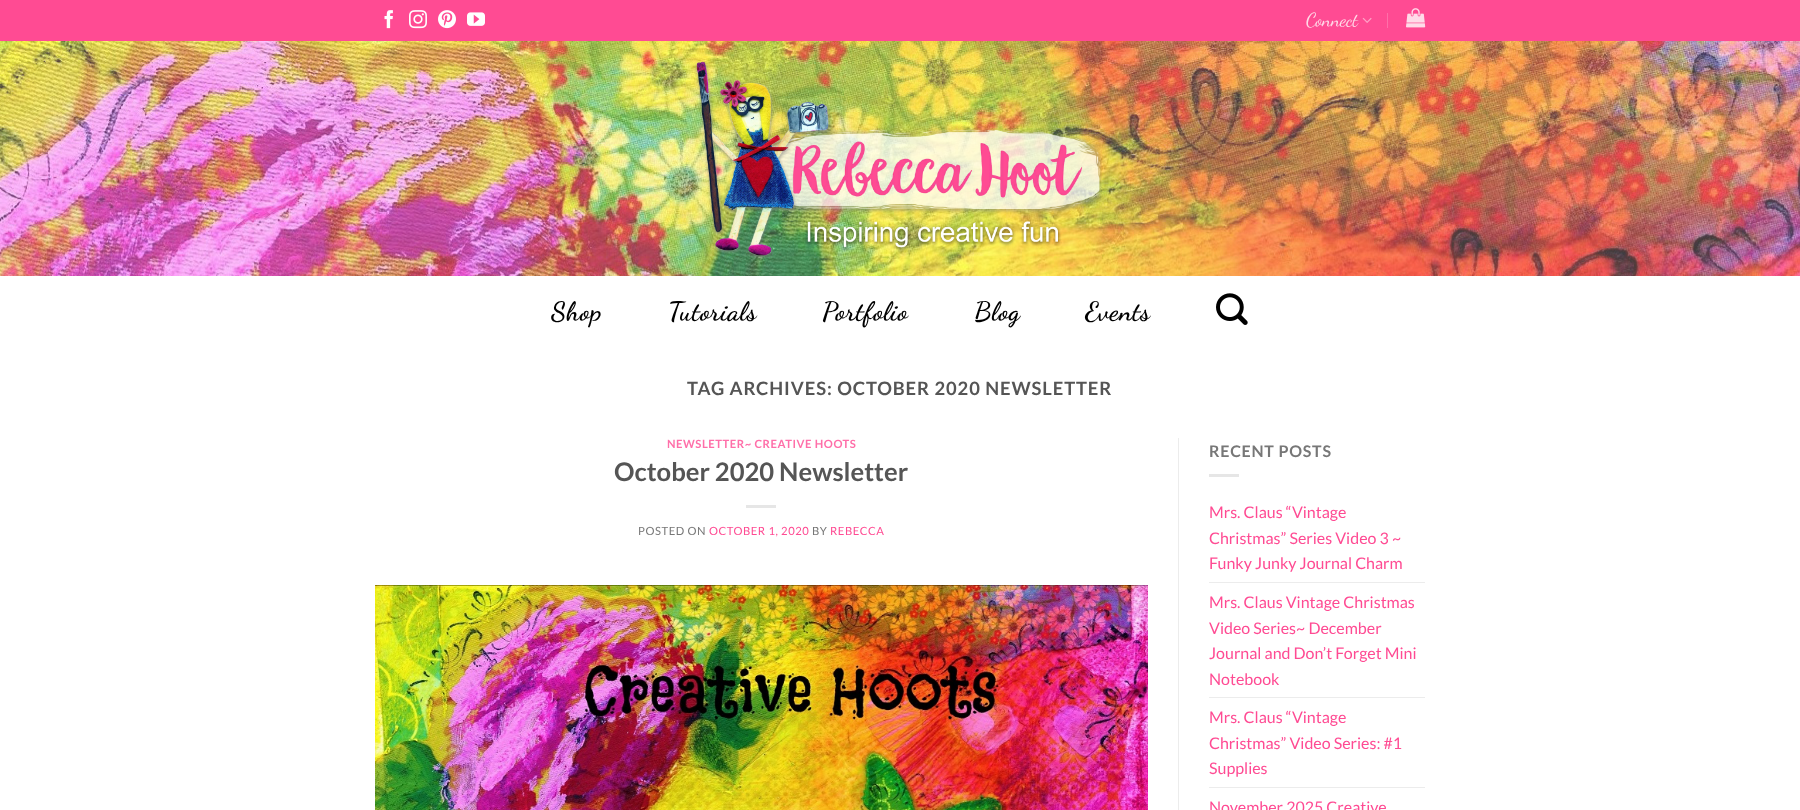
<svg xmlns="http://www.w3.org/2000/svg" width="1800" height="810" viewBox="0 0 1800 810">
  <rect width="100%" height="100%" fill="#fff"/>
  <path d="M0 0h1800v41H0z" fill="#ff4b93"/>
  <image x="384" y="10" width="9" height="19" href="img/1.png"/>
  <image x="409" y="10" width="18" height="19" href="img/2.png"/>
  <image x="438" y="10" width="18" height="19" href="img/3.png"/>
  <image x="467" y="12" width="18" height="14" href="img/4.png"/>
  <image x="1362" y="17" width="10" height="6" href="img/5.png"/>
  <path d="M1387 13h1v15H1387z" fill="#ff6fa9"/>
  <image x="1406" y="8" width="20" height="20" href="img/6.png"/>
  <image x="0" y="41" width="1800" height="235" href="img/7.png"/>
  <image x="694" y="61" width="408" height="198" href="img/8.png"/>
  <image x="1216" y="293" width="32" height="32" href="img/9.png"/>
  <path d="M746 505h30v3H746z" fill="#e6e6e6"/>
  <image x="375" y="585" width="773" height="225" href="img/10.png"/>
  <path d="M1178 438h1v372H1178z" fill="#ececec"/>
  <path d="M1209 474h30v3H1209z" fill="#e6e6e6"/>
  <path d="M1209 582h216v1H1209z" fill="#ececec"/>
  <path d="M1209 697h216v1H1209z" fill="#ececec"/>
  <path d="M1209 787h216v1H1209z" fill="#ececec"/>
  <text x="1306" y="26" font-family="Dancing Script" font-size="19" fill="#ffdbe9">Connect</text>
  <g font-family="Dancing Script" font-size="26.5" font-weight="bold" letter-spacing="0.5" fill="#000">
    <text x="551" y="320">Shop</text>
    <text x="668" y="320">Tutorials</text>
    <text x="822" y="320">Portfolio</text>
    <text x="974" y="320">Blog</text>
    <text x="1085" y="320">Events</text>
  </g>
  <text x="687" y="395" font-family="Lato" font-size="18.4" font-weight="bold" letter-spacing="0.9" fill="#555">TAG ARCHIVES: OCTOBER 2020 NEWSLETTER</text>
  <text x="667" y="448" font-family="Lato" font-size="11.25" font-weight="bold" letter-spacing="0.55" fill="#ff6fa9">NEWSLETTER~ CREATIVE HOOTS</text>
  <text x="614" y="481" font-family="Lato" font-size="25.6" font-weight="bold" fill="#555">October 2020 Newsletter</text>
  <text x="638" y="535" font-family="Lato" font-size="11.25" letter-spacing="0.55" fill="#777">POSTED ON</text>
  <text x="709" y="535" font-family="Lato" font-size="11.25" letter-spacing="0.55" fill="#ff4b93">OCTOBER 1, 2020</text>
  <text x="812" y="535" font-family="Lato" font-size="11.25" letter-spacing="0.55" fill="#777">BY</text>
  <text x="830" y="535" font-family="Lato" font-size="11.25" letter-spacing="0.55" fill="#ff4b93">REBECCA</text>
  <text x="1209" y="457" font-family="Lato" font-size="16" font-weight="bold" letter-spacing="0.75" fill="#777">RECENT POSTS</text>
  <g font-family="Lato" font-size="16" fill="#ff4b93">
    <text x="1209" y="518">Mrs. Claus “Vintage</text>
    <text x="1209" y="544">Christmas” Series Video 3 ~</text>
    <text x="1209" y="569">Funky Junky Journal Charm</text>
    <text x="1209" y="608">Mrs. Claus Vintage Christmas</text>
    <text x="1209" y="634">Video Series~ December</text>
    <text x="1209" y="659">Journal and Don’t Forget Mini</text>
    <text x="1209" y="685">Notebook</text>
    <text x="1209" y="723">Mrs. Claus “Vintage</text>
    <text x="1209" y="749">Christmas” Video Series: #1</text>
    <text x="1209" y="774">Supplies</text>
    <text x="1209" y="813">November 2025 Creative</text>
  </g>
</svg>
